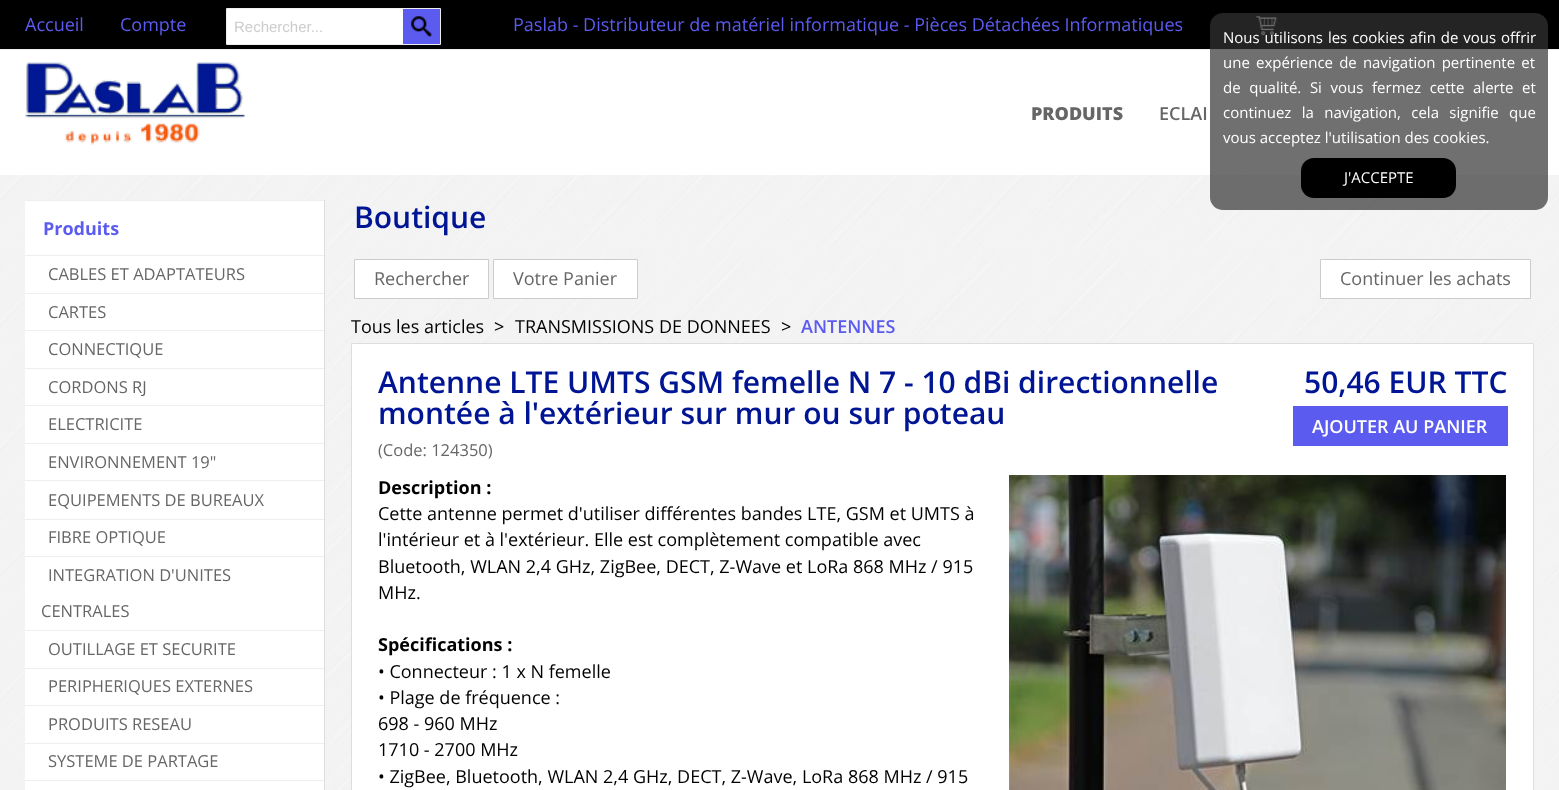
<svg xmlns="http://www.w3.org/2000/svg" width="1559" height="790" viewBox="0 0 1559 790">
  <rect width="100%" height="100%" fill="#fff"/>
  <path d="M0 0h1559v49H0z" fill="#000"/>
  <path d="M0 49h1559v1H0z" fill="#eee"/>
  <path d="M227 9h176v35H227z" fill="#fff"/>
  <path d="M226.5 8.5h214v36H226.5z" fill="none" stroke="#eee"/>
  <path d="M403 9h37v35H403z" fill="#5b5bf0"/>
  <image x="411" y="16" width="21" height="21" href="img/1.png"/>
  <image x="1256" y="16" width="21" height="20" href="img/2.png"/>
  <image x="25" y="62" width="220" height="83" href="img/3.png"/>
  <image x="0" y="175" width="1559" height="615" href="img/4.png"/>
  <path d="M25 201h299v589H25z" fill="#fff"/>
  <path d="M324 200h1v590H324z" fill="#ddd"/>
  <path d="M25 200h299v1H25z" fill="#eee"/>
  <path d="M25 255h299v1H25z" fill="#eee"/>
  <path d="M25 293h299v1H25z" fill="#eee"/>
  <path d="M25 330h299v1H25z" fill="#eee"/>
  <path d="M25 368h299v1H25z" fill="#eee"/>
  <path d="M25 405h299v1H25z" fill="#eee"/>
  <path d="M25 443h299v1H25z" fill="#eee"/>
  <path d="M25 480h299v1H25z" fill="#eee"/>
  <path d="M25 519h299v1H25z" fill="#eee"/>
  <path d="M25 556h299v1H25z" fill="#eee"/>
  <path d="M25 630h299v1H25z" fill="#eee"/>
  <path d="M25 668h299v1H25z" fill="#eee"/>
  <path d="M25 705h299v1H25z" fill="#eee"/>
  <path d="M25 743h299v1H25z" fill="#eee"/>
  <path d="M25 780h299v1H25z" fill="#eee"/>
  <path d="M354.5 259.5h134v39H354.5z" fill="#fff" stroke="#ccc"/>
  <path d="M493.5 259.5h144v39H493.5z" fill="#fff" stroke="#ccc"/>
  <path d="M1320.5 259.5h210v39H1320.5z" fill="#fff" stroke="#ccc"/>
  <path d="M351.5 343.5h1182v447H351.5z" fill="#fff" stroke="#ddd"/>
  <path d="M1293 406h215v40H1293z" fill="#5b5bf0"/>
  <image x="1009" y="475" width="497" height="315" href="img/5.png"/>
  <rect x="1210" y="13" width="338" height="197" rx="13" fill="#333333b3"/>
  <rect x="1301" y="158" width="155" height="40" rx="13" fill="#000"/>
  <g font-family="Open Sans" font-size="18" fill="#5b5bf0">
    <text x="25" y="31">Accueil</text>
    <text x="120" y="31">Compte</text>
  </g>
  <text x="234" y="32" font-family="Liberation Sans" font-size="15" fill="#ccc">Rechercher...</text>
  <text x="513" y="31" font-family="Open Sans" font-size="18" fill="#5b5bf0">Paslab - Distributeur de matériel informatique - Pièces Détachées Informatiques</text>
  <text x="1031" y="120" font-family="Open Sans" font-size="18" font-weight="800" fill="#666">PRODUITS</text>
  <text x="1159" y="120" font-family="Open Sans" font-size="18" font-weight="600" fill="#666">ECLAI</text>
  <text x="43" y="235" font-family="Open Sans" font-size="18" font-weight="bold" fill="#5b5bf0">Produits</text>
  <g font-family="Open Sans" font-size="16.5" fill="#666">
    <text x="48" y="280">CABLES ET ADAPTATEURS</text>
    <text x="48" y="318">CARTES</text>
    <text x="48" y="355">CONNECTIQUE</text>
    <text x="48" y="393">CORDONS RJ</text>
    <text x="48" y="430">ELECTRICITE</text>
    <text x="48" y="468">ENVIRONNEMENT 19"</text>
    <text x="48" y="506">EQUIPEMENTS DE BUREAUX</text>
    <text x="48" y="543">FIBRE OPTIQUE</text>
    <text x="48" y="581">INTEGRATION D'UNITES</text>
    <text x="41" y="617">CENTRALES</text>
    <text x="48" y="655">OUTILLAGE ET SECURITE</text>
    <text x="48" y="692">PERIPHERIQUES EXTERNES</text>
    <text x="48" y="730">PRODUITS RESEAU</text>
    <text x="48" y="767">SYSTEME DE PARTAGE</text>
  </g>
  <text x="354" y="228" font-family="Open Sans" font-size="30" font-weight="600" fill="#001594">Boutique</text>
  <g font-family="Open Sans" font-size="18" fill="#666">
    <text x="374" y="285">Rechercher</text>
    <text x="513" y="285">Votre Panier</text>
    <text x="1340" y="285">Continuer les achats</text>
  </g>
  <g font-family="Open Sans" font-size="18" fill="#000">
    <text x="351" y="333">Tous les articles</text>
    <text x="494" y="333">&gt;</text>
    <text x="515" y="333">TRANSMISSIONS DE DONNEES</text>
    <text x="781" y="333">&gt;</text>
  </g>
  <text x="801" y="333" font-family="Open Sans" font-size="18" font-weight="600" fill="#5b5bf0">ANTENNES</text>
  <g font-family="Open Sans" font-size="30" font-weight="600" fill="#001594">
    <text x="378" y="393">Antenne LTE UMTS GSM femelle N 7 - 10 dBi directionnelle</text>
    <text x="378" y="424">montée à l'extérieur sur mur ou sur poteau</text>
  </g>
  <text x="378" y="456" font-family="Open Sans" font-size="16.5" fill="#666">(Code: 124350)</text>
  <text x="1304" y="393" font-family="Open Sans" font-size="30" font-weight="600" fill="#001594">50,46 EUR TTC</text>
  <text x="1312" y="433" font-family="Open Sans" font-size="18" font-weight="600" fill="#fff">AJOUTER AU PANIER</text>
  <text x="378" y="494" font-family="Open Sans" font-size="18" font-weight="bold" fill="#000">Description :</text>
  <g font-family="Open Sans" font-size="18" fill="#000">
    <text x="378" y="520">Cette antenne permet d'utiliser différentes bandes LTE, GSM et UMTS à</text>
    <text x="378" y="546">l'intérieur et à l'extérieur. Elle est complètement compatible avec</text>
    <text x="378" y="573">Bluetooth, WLAN 2,4 GHz, ZigBee, DECT, Z-Wave et LoRa 868 MHz / 915</text>
    <text x="378" y="599">MHz.</text>
  </g>
  <text x="378" y="651" font-family="Open Sans" font-size="18" font-weight="bold" fill="#000">Spécifications :</text>
  <g font-family="Open Sans" font-size="18" fill="#000">
    <text x="378" y="678">• Connecteur : 1 x N femelle</text>
    <text x="378" y="704">• Plage de fréquence :</text>
    <text x="378" y="730">698 - 960 MHz</text>
    <text x="378" y="756">1710 - 2700 MHz</text>
    <text x="378" y="783">• ZigBee, Bluetooth, WLAN 2,4 GHz, DECT, Z-Wave, LoRa 868 MHz / 915</text>
  </g>
  <g font-family="Open Sans" font-size="15" fill="#fff">
    <text x="1223" y="43" word-spacing="1">Nous utilisons les cookies afin de vous offrir</text>
    <text x="1223" y="68" word-spacing="2.25">une expérience de navigation pertinente et</text>
    <text x="1223" y="93" word-spacing="4.75">de qualité. Si vous fermez cette alerte et</text>
    <text x="1223" y="118" word-spacing="6.5">continuez la navigation, cela signifie que</text>
    <text x="1223" y="143">vous acceptez l'utilisation des cookies.</text>
    <text x="1344" y="183">J'ACCEPTE</text>
  </g>
</svg>
